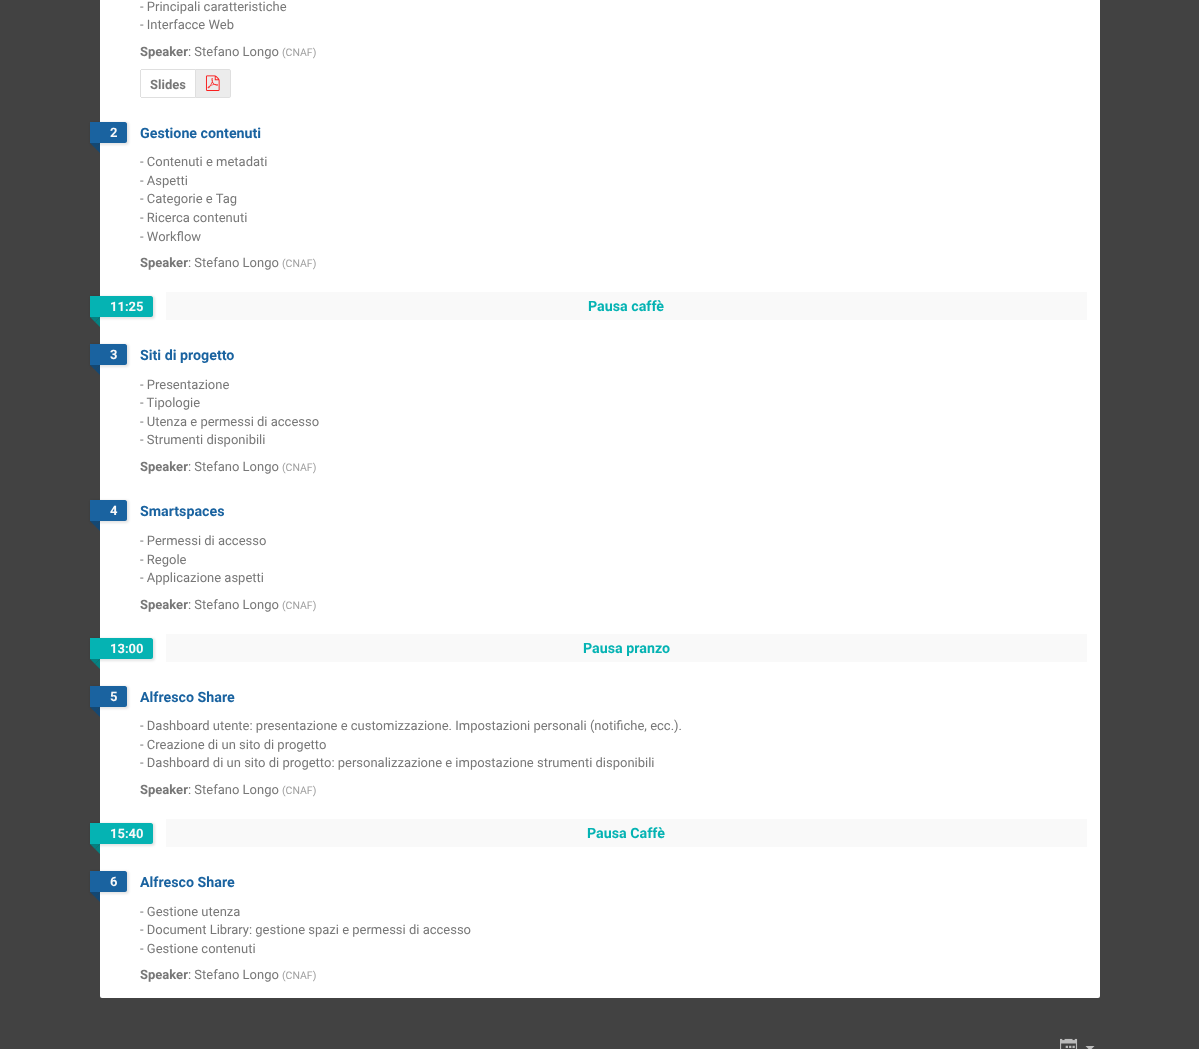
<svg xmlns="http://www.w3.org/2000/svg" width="1199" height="1049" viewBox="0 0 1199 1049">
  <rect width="100%" height="100%" fill="#424242"/>
  <rect x="100" y="-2" width="1000" height="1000" rx="2" fill="#fff"/>
  <path d="M141 69h54v1H141z" fill="#dfdfdf"/>
  <path d="M141 97h54v1H141z" fill="#dfdfdf"/>
  <path d="M140 70h1v27H140z" fill="#dfdfdf"/>
  <path d="M195.5 69.5H229C230 69.5 230.5 70 230.5 71V96C230.5 97 230 97.5 229 97.5H195.5Z" fill="#ececec" stroke="#dfdfdf"/>
  <image x="205" y="75" width="15" height="16" href="img/1.png"/>
  <rect x="90" y="122" width="39" height="23" rx="3" fill="#0000001a" filter="blur(1px)"/>
  <path d="M90 122H125C126 122 127 123 127 124V141C127 142 126 143 125 143H90Z" fill="#1a63a0"/>
  <path d="M90 143H100L95 148Z" fill="#134874"/>
  <path d="M100 143V153L95 148Z" fill="#134874"/>
  <rect x="90" y="296" width="65" height="23" rx="3" fill="#0000001a" filter="blur(1px)"/>
  <path d="M90 296H151C152 296 153 297 153 298V315C153 316 152 317 151 317H90Z" fill="#05b3b3"/>
  <path d="M90 317H100L95 322Z" fill="#048181"/>
  <path d="M100 317V327L95 322Z" fill="#048181"/>
  <path d="M166 292h921v28H166z" fill="#f9f9f9"/>
  <rect x="90" y="344" width="39" height="23" rx="3" fill="#0000001a" filter="blur(1px)"/>
  <path d="M90 344H125C126 344 127 345 127 346V363C127 364 126 365 125 365H90Z" fill="#1a63a0"/>
  <path d="M90 365H100L95 370Z" fill="#134874"/>
  <path d="M100 365V375L95 370Z" fill="#134874"/>
  <rect x="90" y="500" width="39" height="23" rx="3" fill="#0000001a" filter="blur(1px)"/>
  <path d="M90 500H125C126 500 127 501 127 502V519C127 520 126 521 125 521H90Z" fill="#1a63a0"/>
  <path d="M90 521H100L95 526Z" fill="#134874"/>
  <path d="M100 521V531L95 526Z" fill="#134874"/>
  <rect x="90" y="638" width="65" height="23" rx="3" fill="#0000001a" filter="blur(1px)"/>
  <path d="M90 638H151C152 638 153 639 153 640V657C153 658 152 659 151 659H90Z" fill="#05b3b3"/>
  <path d="M90 659H100L95 664Z" fill="#048181"/>
  <path d="M100 659V669L95 664Z" fill="#048181"/>
  <path d="M166 634h921v28H166z" fill="#f9f9f9"/>
  <rect x="90" y="686" width="39" height="23" rx="3" fill="#0000001a" filter="blur(1px)"/>
  <path d="M90 686H125C126 686 127 687 127 688V705C127 706 126 707 125 707H90Z" fill="#1a63a0"/>
  <path d="M90 707H100L95 712Z" fill="#134874"/>
  <path d="M100 707V717L95 712Z" fill="#134874"/>
  <rect x="90" y="823" width="65" height="23" rx="3" fill="#0000001a" filter="blur(1px)"/>
  <path d="M90 823H151C152 823 153 824 153 825V842C153 843 152 844 151 844H90Z" fill="#05b3b3"/>
  <path d="M90 844H100L95 849Z" fill="#048181"/>
  <path d="M100 844V854L95 849Z" fill="#048181"/>
  <path d="M166 819h921v28H166z" fill="#f9f9f9"/>
  <rect x="90" y="871" width="39" height="23" rx="3" fill="#0000001a" filter="blur(1px)"/>
  <path d="M90 871H125C126 871 127 872 127 873V890C127 891 126 892 125 892H90Z" fill="#1a63a0"/>
  <path d="M90 892H100L95 897Z" fill="#134874"/>
  <path d="M100 892V902L95 897Z" fill="#134874"/>
  <image x="1060" y="1038" width="18" height="11" href="img/2.png"/>
  <path d="M1085.5 1046L1090 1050.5L1094.5 1046Z" fill="#bbb"/>
  <g font-family="Roboto" font-size="13" fill="#777">
    <text x="140" y="11">- Principali caratteristiche</text>
    <text x="140" y="29">- Interfacce Web</text>
  </g>
  <text x="140" y="56" font-family="Roboto" font-size="13" font-weight="bold" fill="#777">Speaker</text>
  <text x="188" y="56" font-family="Roboto" font-size="13" fill="#777">: Stefano Longo</text>
  <text x="282" y="56" font-family="Roboto" font-size="10.5" fill="#a0a0a0">(CNAF)</text>
  <text x="150" y="89" font-family="Roboto" font-size="13" font-weight="bold" fill="#777">Slides</text>
  <text x="110" y="137" font-family="Roboto" font-size="13" font-weight="bold" fill="#f9f9f9">2</text>
  <text x="140" y="138" font-family="Roboto" font-size="14.25" font-weight="bold" fill="#1a63a0">Gestione contenuti</text>
  <g font-family="Roboto" font-size="13" fill="#777">
    <text x="140" y="166">- Contenuti e metadati</text>
    <text x="140" y="185">- Aspetti</text>
    <text x="140" y="203">- Categorie e Tag</text>
    <text x="140" y="222">- Ricerca contenuti</text>
    <text x="140" y="241">- Workflow</text>
  </g>
  <text x="140" y="267" font-family="Roboto" font-size="13" font-weight="bold" fill="#777">Speaker</text>
  <text x="188" y="267" font-family="Roboto" font-size="13" fill="#777">: Stefano Longo</text>
  <text x="282" y="267" font-family="Roboto" font-size="10.5" fill="#a0a0a0">(CNAF)</text>
  <text x="110" y="311" font-family="Roboto" font-size="13" font-weight="bold" fill="#f9f9f9">11:25</text>
  <text x="588" y="311" font-family="Roboto" font-size="14.25" font-weight="bold" fill="#05b3b3">Pausa caffè</text>
  <text x="110" y="359" font-family="Roboto" font-size="13" font-weight="bold" fill="#f9f9f9">3</text>
  <text x="140" y="360" font-family="Roboto" font-size="14.25" font-weight="bold" fill="#1a63a0">Siti di progetto</text>
  <g font-family="Roboto" font-size="13" fill="#777">
    <text x="140" y="389">- Presentazione</text>
    <text x="140" y="407">- Tipologie</text>
    <text x="140" y="426">- Utenza e permessi di accesso</text>
    <text x="140" y="444">- Strumenti disponibili</text>
  </g>
  <text x="140" y="471" font-family="Roboto" font-size="13" font-weight="bold" fill="#777">Speaker</text>
  <text x="188" y="471" font-family="Roboto" font-size="13" fill="#777">: Stefano Longo</text>
  <text x="282" y="471" font-family="Roboto" font-size="10.5" fill="#a0a0a0">(CNAF)</text>
  <text x="110" y="515" font-family="Roboto" font-size="13" font-weight="bold" fill="#f9f9f9">4</text>
  <text x="140" y="516" font-family="Roboto" font-size="14.25" font-weight="bold" fill="#1a63a0">Smartspaces</text>
  <g font-family="Roboto" font-size="13" fill="#777">
    <text x="140" y="545">- Permessi di accesso</text>
    <text x="140" y="564">- Regole</text>
    <text x="140" y="582">- Applicazione aspetti</text>
  </g>
  <text x="140" y="609" font-family="Roboto" font-size="13" font-weight="bold" fill="#777">Speaker</text>
  <text x="188" y="609" font-family="Roboto" font-size="13" fill="#777">: Stefano Longo</text>
  <text x="282" y="609" font-family="Roboto" font-size="10.5" fill="#a0a0a0">(CNAF)</text>
  <text x="110" y="653" font-family="Roboto" font-size="13" font-weight="bold" fill="#f9f9f9">13:00</text>
  <text x="583" y="653" font-family="Roboto" font-size="14.25" font-weight="bold" fill="#05b3b3">Pausa pranzo</text>
  <text x="110" y="701" font-family="Roboto" font-size="13" font-weight="bold" fill="#f9f9f9">5</text>
  <text x="140" y="702" font-family="Roboto" font-size="14.25" font-weight="bold" fill="#1a63a0">Alfresco Share</text>
  <g font-family="Roboto" font-size="13" fill="#777">
    <text x="140" y="730">- Dashboard utente: presentazione e customizzazione. Impostazioni personali (notifiche, ecc.).</text>
    <text x="140" y="749">- Creazione di un sito di progetto</text>
    <text x="140" y="767">- Dashboard di un sito di progetto: personalizzazione e impostazione strumenti disponibili</text>
  </g>
  <text x="140" y="794" font-family="Roboto" font-size="13" font-weight="bold" fill="#777">Speaker</text>
  <text x="188" y="794" font-family="Roboto" font-size="13" fill="#777">: Stefano Longo</text>
  <text x="282" y="794" font-family="Roboto" font-size="10.5" fill="#a0a0a0">(CNAF)</text>
  <text x="110" y="838" font-family="Roboto" font-size="13" font-weight="bold" fill="#f9f9f9">15:40</text>
  <text x="587" y="838" font-family="Roboto" font-size="14.25" font-weight="bold" fill="#05b3b3">Pausa Caffè</text>
  <text x="110" y="886" font-family="Roboto" font-size="13" font-weight="bold" fill="#f9f9f9">6</text>
  <text x="140" y="887" font-family="Roboto" font-size="14.25" font-weight="bold" fill="#1a63a0">Alfresco Share</text>
  <g font-family="Roboto" font-size="13" fill="#777">
    <text x="140" y="916">- Gestione utenza</text>
    <text x="140" y="934">- Document Library: gestione spazi e permessi di accesso</text>
    <text x="140" y="953">- Gestione contenuti</text>
  </g>
  <text x="140" y="979" font-family="Roboto" font-size="13" font-weight="bold" fill="#777">Speaker</text>
  <text x="188" y="979" font-family="Roboto" font-size="13" fill="#777">: Stefano Longo</text>
  <text x="282" y="979" font-family="Roboto" font-size="10.5" fill="#a0a0a0">(CNAF)</text>
</svg>
